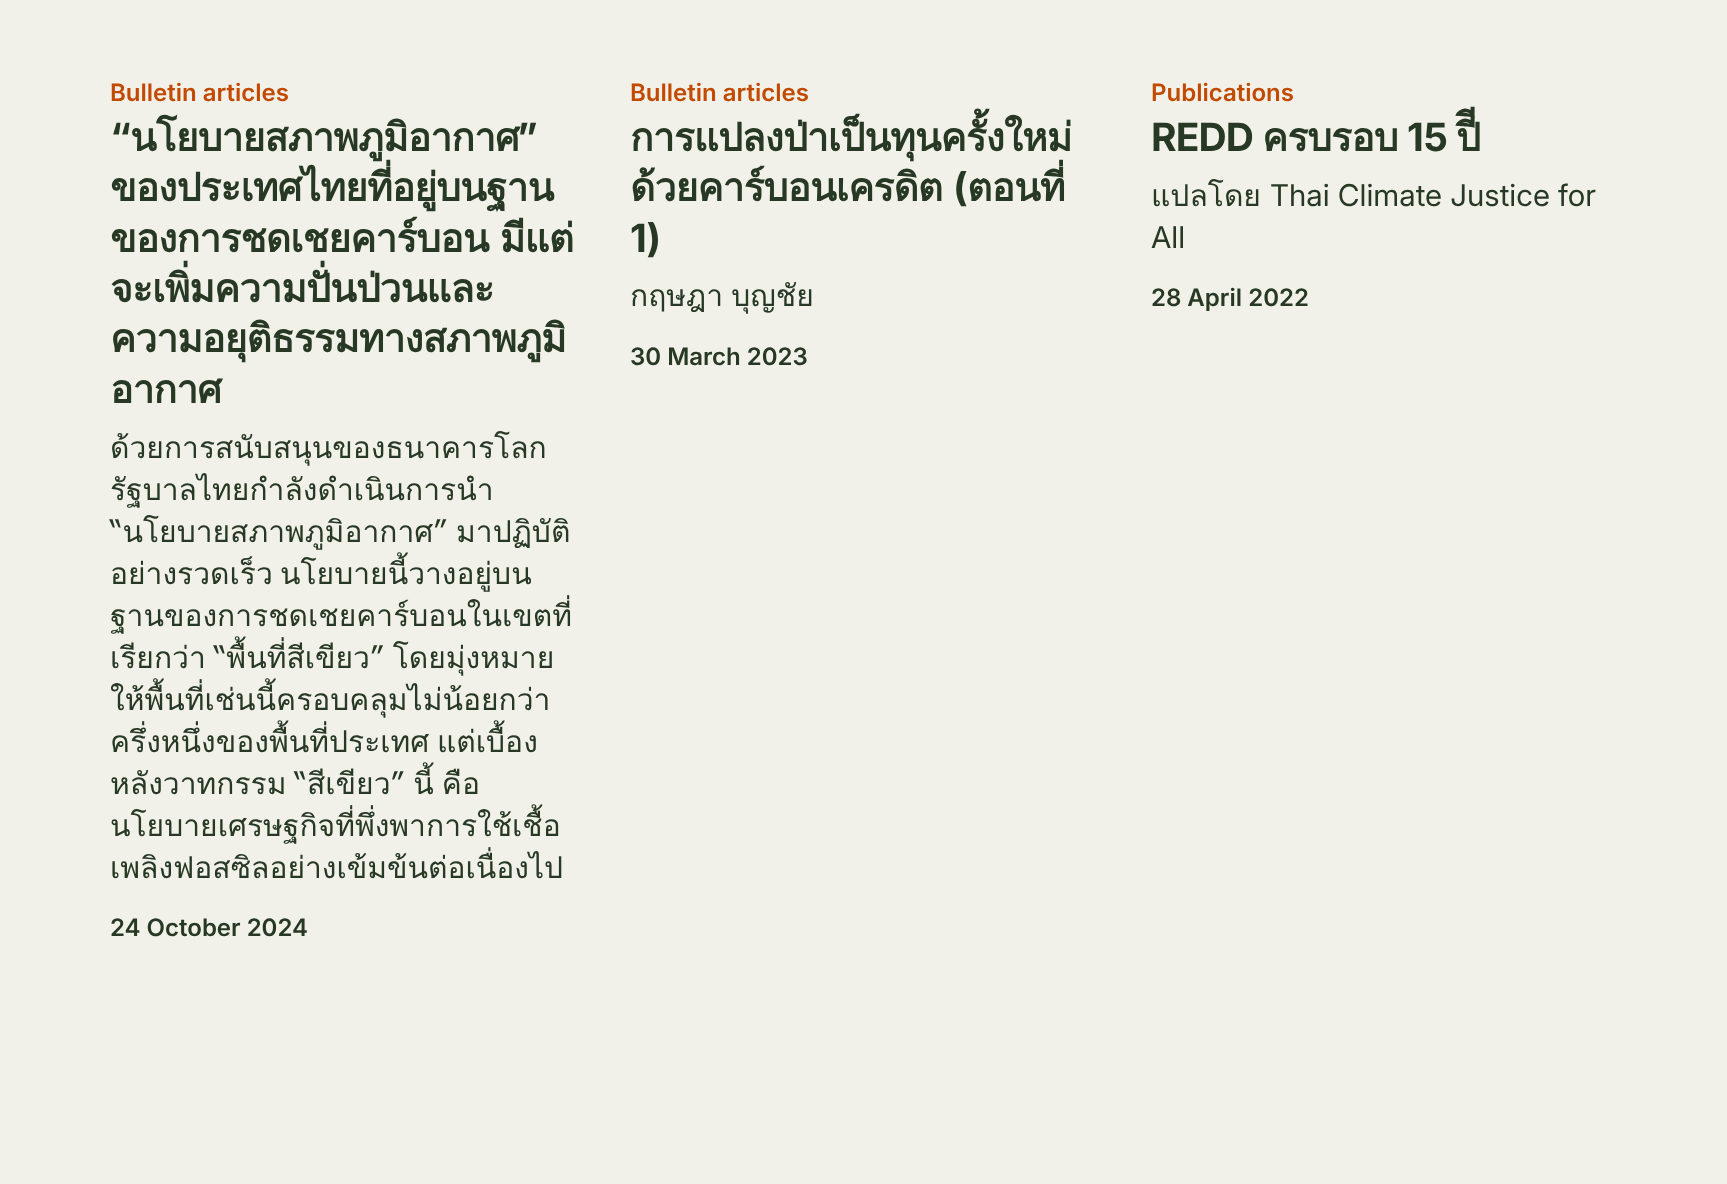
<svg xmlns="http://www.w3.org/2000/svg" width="1727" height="1184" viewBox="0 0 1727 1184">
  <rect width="100%" height="100%" fill="#f1f1e9"/>
  <text x="110" y="101" font-family="Inter" font-size="24" font-weight="600" fill="#c24a00">Bulletin articles</text>
  <text x="110" y="151" font-family="Inter" font-size="39" font-weight="bold" letter-spacing="-0.9" fill="#273924">“</text>
  <text x="130" y="151" font-family="Loma" font-size="39" font-weight="bold" letter-spacing="-0.9" fill="#273924">นโยบายสภาพภูมิอากาศ</text>
  <text x="517" y="151" font-family="Inter" font-size="39" font-weight="bold" letter-spacing="-0.9" fill="#273924">”</text>
  <g font-family="Loma" font-size="39" font-weight="bold" letter-spacing="-0.9" fill="#273924">
    <text x="110" y="201">ของประเทศไทยที่อยู่บนฐาน</text>
    <text x="110" y="252" word-spacing="-1">ของการชดเชยคาร์บอน มีแต่</text>
    <text x="110" y="302">จะเพิ่มความปั่นป่วนและ</text>
    <text x="110" y="352">ความอยุติธรรมทางสภาพภูมิ</text>
    <text x="110" y="403">อากาศ</text>
  </g>
  <g font-family="Loma" font-size="30" fill="#273924">
    <text x="110" y="458">ด้วยการสนับสนุนของธนาคารโลก</text>
    <text x="110" y="500">รัฐบาลไทยกําลังดําเนินการนำ</text>
    <text x="110" y="542" word-spacing="-2">“นโยบายสภาพภูมิอากาศ” มาปฏิบัติ</text>
    <text x="110" y="584">อย่างรวดเร็ว</text>
    <text x="280" y="584">นโยบายนี้วางอยู่บน</text>
    <text x="110" y="626">ฐานของการชดเชยคาร์บอนในเขตที่</text>
    <text x="110" y="668" word-spacing="-2">เรียกว่า “พื้นที่สีเขียว” โดยมุ่งหมาย</text>
    <text x="110" y="710">ให้พื้นที่เช่นนี้ครอบคลุมไม่น้อยกว่า</text>
    <text x="110" y="752">ครึ่งหนึ่งของพื้นที่ประเทศ</text>
    <text x="437" y="752">แต่เบื้อง</text>
    <text x="110" y="794" word-spacing="-2">หลังวาทกรรม “สีเขียว” นี้ คือ</text>
    <text x="110" y="836">นโยบายเศรษฐกิจที่พึ่งพาการใช้เชื้อ</text>
    <text x="110" y="878">เพลิงฟอสซิลอย่างเข้มข้นต่อเนื่องไป</text>
  </g>
  <text x="110" y="936" font-family="Inter" font-size="24" font-weight="600" fill="#273924">24 October 2024</text>
  <text x="630" y="101" font-family="Inter" font-size="24" font-weight="600" fill="#c24a00">Bulletin articles</text>
  <g font-family="Loma" font-size="39" font-weight="bold" letter-spacing="-0.9" fill="#273924">
    <text x="630" y="151">การแปลงป่าเป็นทุนครั้งใหม่</text>
    <text x="630" y="201">ด้วยคาร์บอนเครดิต</text>
  </g>
  <text x="953" y="201" font-family="Inter" font-size="39" font-weight="bold" letter-spacing="-0.9" fill="#273924">(</text>
  <text x="967" y="201" font-family="Loma" font-size="39" font-weight="bold" letter-spacing="-0.9" fill="#273924">ตอนที่</text>
  <text x="630" y="252" font-family="Inter" font-size="39" font-weight="bold" letter-spacing="-0.9" fill="#273924">1)</text>
  <text x="630" y="306" word-spacing="-2" font-family="Loma" font-size="30" fill="#273924">กฤษฎา บุญชัย</text>
  <text x="630" y="365" font-family="Inter" font-size="24" font-weight="600" fill="#273924">30 March 2023</text>
  <text x="1151" y="101" font-family="Inter" font-size="24" font-weight="600" fill="#c24a00">Publications</text>
  <text x="1151" y="151" font-family="Inter" font-size="39" font-weight="bold" letter-spacing="-0.9" fill="#273924">REDD</text>
  <text x="1262" y="151" font-family="Loma" font-size="39" font-weight="bold" letter-spacing="-0.9" fill="#273924">ครบรอบ</text>
  <text x="1407" y="151" font-family="Inter" font-size="39" font-weight="bold" letter-spacing="-0.9" fill="#273924">15</text>
  <text x="1456" y="151" font-family="Loma" font-size="39" font-weight="bold" letter-spacing="-0.9" fill="#273924">ปีี</text>
  <text x="1151" y="206" font-family="Loma" font-size="30" fill="#273924">แปลโดย</text>
  <g font-family="Inter" font-size="30" fill="#273924">
    <text x="1270" y="206">Thai Climate Justice for</text>
    <text x="1151" y="248">All</text>
  </g>
  <text x="1151" y="306" font-family="Inter" font-size="24" font-weight="600" fill="#273924">28 April 2022</text>
</svg>
